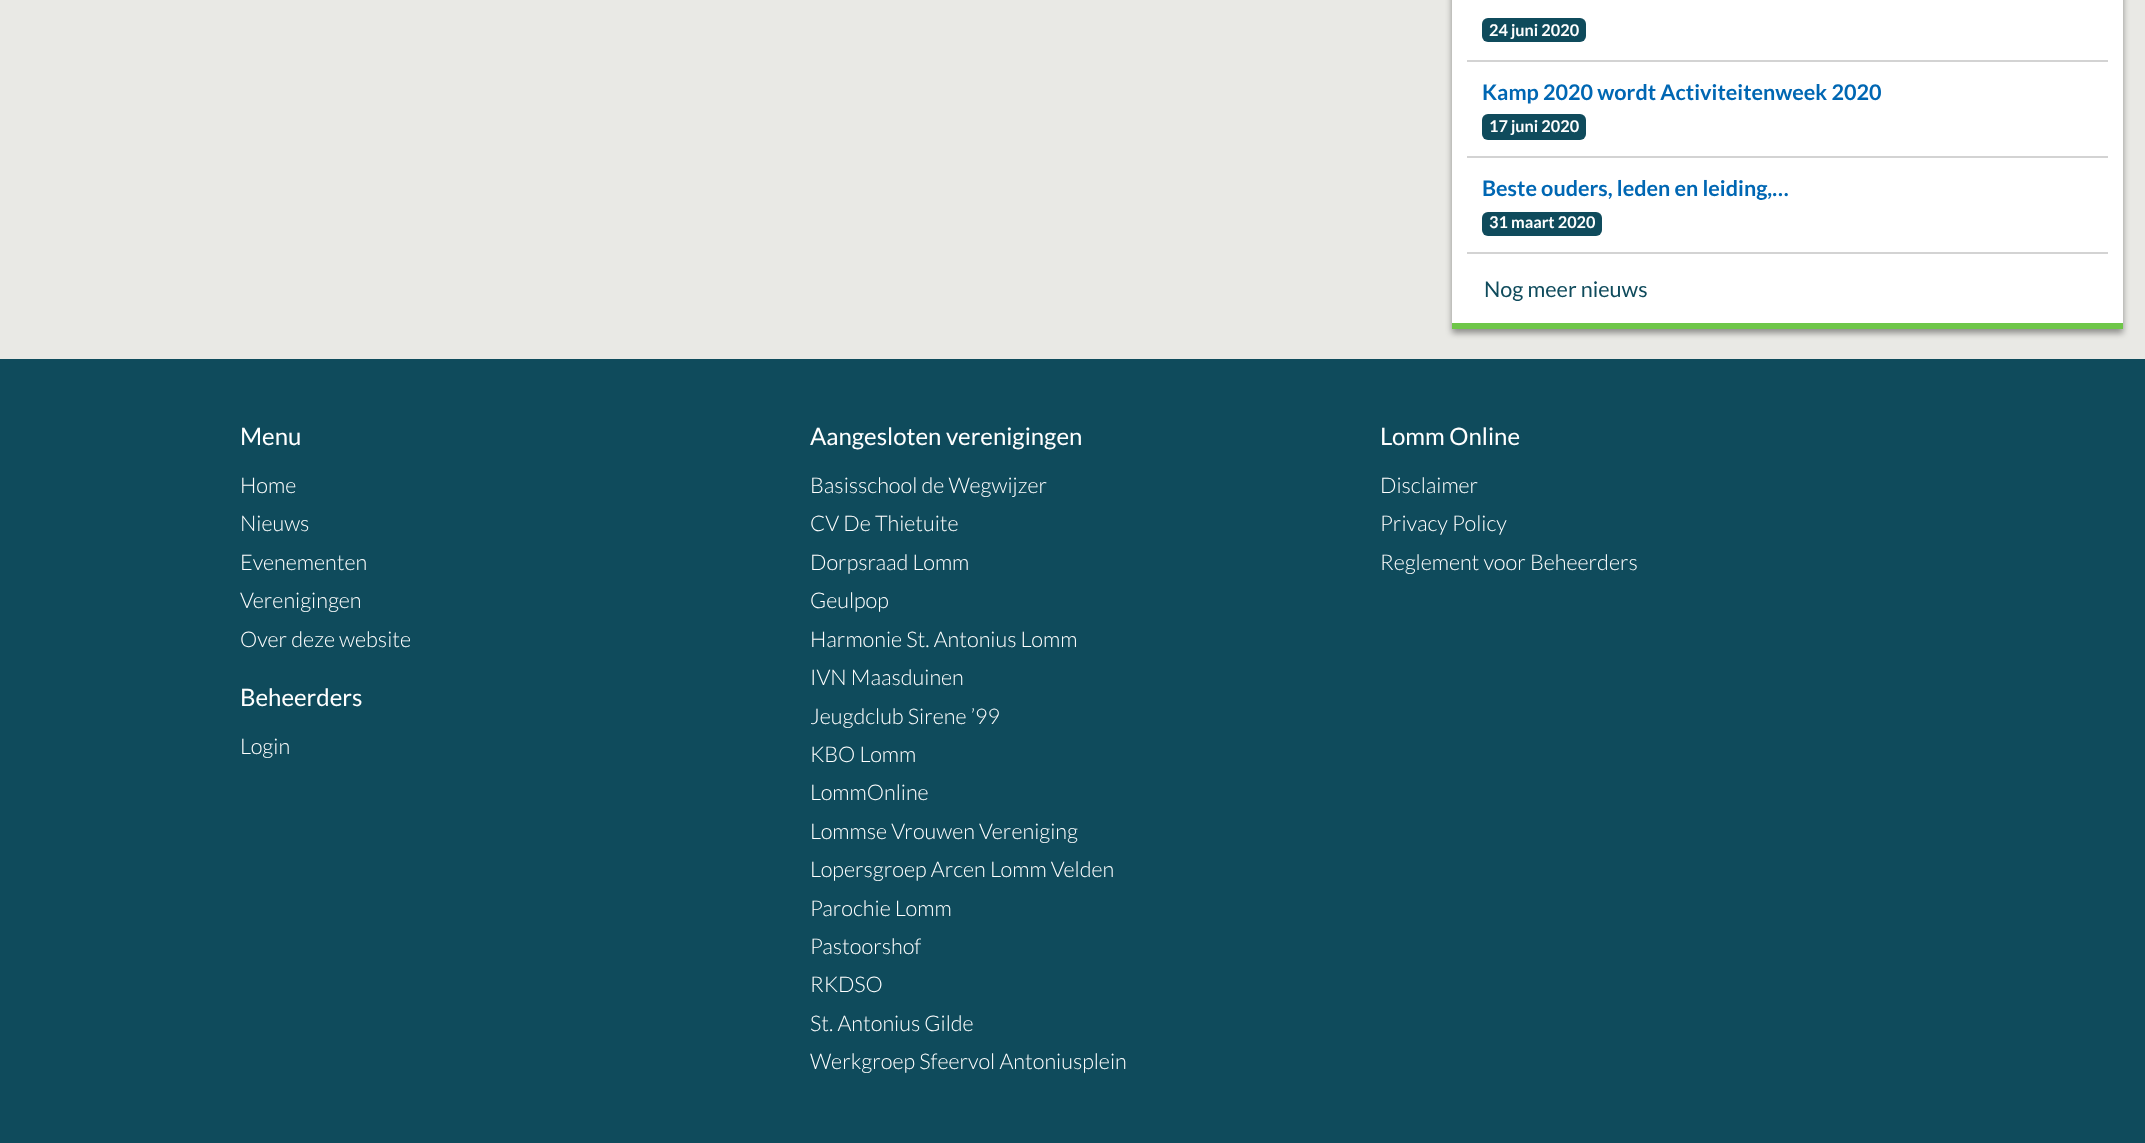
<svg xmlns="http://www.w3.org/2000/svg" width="2145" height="1143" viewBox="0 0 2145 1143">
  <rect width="100%" height="100%" fill="#e9e9e5"/>
  <path d="M1452 -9h671v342H1452z" fill="#00000066" filter="blur(3px)"/>
  <path d="M1452 0h671v323H1452z" fill="#fff"/>
  <path d="M1452 323h671v6H1452z" fill="#6fc649"/>
  <path d="M1467 60h641v2H1467z" fill="#d3d3d3"/>
  <rect x="1482" y="18" width="104" height="24" rx="6" fill="#0f4b5c"/>
  <path d="M1467 156h641v2H1467z" fill="#d3d3d3"/>
  <rect x="1482" y="114" width="104" height="26" rx="6" fill="#0f4b5c"/>
  <path d="M1467 252h641v2H1467z" fill="#d3d3d3"/>
  <rect x="1482" y="212" width="120" height="24" rx="6" fill="#0f4b5c"/>
  <path d="M0 359h2145v784H0z" fill="#0f4b5c"/>
  <text x="1489" y="36" font-family="Lato" font-size="16.25" font-weight="bold" fill="#fff">24 juni 2020</text>
  <text x="1482" y="100" font-family="Lato" font-size="21.6" font-weight="bold" fill="#0067b3">Kamp 2020 wordt Activiteitenweek 2020</text>
  <text x="1489" y="132" font-family="Lato" font-size="16.25" font-weight="bold" fill="#fff">17 juni 2020</text>
  <text x="1482" y="196" font-family="Lato" font-size="21.6" font-weight="bold" fill="#0067b3">Beste ouders, leden en leiding,…</text>
  <text x="1489" y="228" font-family="Lato" font-size="16.25" font-weight="bold" fill="#fff">31 maart 2020</text>
  <text x="1484" y="297" font-family="Lato" font-size="21.6" fill="#0f4b5c">Nog meer nieuws</text>
  <text x="240" y="445" font-family="Lato" font-size="24" fill="#fff">Menu</text>
  <g font-family="Lato" font-size="21.6" font-weight="300" fill="#fff">
    <text x="240" y="493">Home</text>
    <text x="240" y="531">Nieuws</text>
    <text x="240" y="570">Evenementen</text>
    <text x="240" y="608">Verenigingen</text>
    <text x="240" y="647">Over deze website</text>
  </g>
  <text x="240" y="706" font-family="Lato" font-size="24" fill="#fff">Beheerders</text>
  <text x="240" y="754" font-family="Lato" font-size="21.6" font-weight="300" fill="#fff">Login</text>
  <text x="810" y="445" font-family="Lato" font-size="24" fill="#fff">Aangesloten verenigingen</text>
  <g font-family="Lato" font-size="21.6" font-weight="300" fill="#fff">
    <text x="810" y="493">Basisschool de Wegwijzer</text>
    <text x="810" y="531">CV De Thietuite</text>
    <text x="810" y="570">Dorpsraad Lomm</text>
    <text x="810" y="608">Geulpop</text>
    <text x="810" y="647">Harmonie St. Antonius Lomm</text>
    <text x="810" y="685">IVN Maasduinen</text>
    <text x="810" y="724">Jeugdclub Sirene ’99</text>
    <text x="810" y="762">KBO Lomm</text>
    <text x="810" y="800">LommOnline</text>
    <text x="810" y="839">Lommse Vrouwen Vereniging</text>
    <text x="810" y="877">Lopersgroep Arcen Lomm Velden</text>
    <text x="810" y="916">Parochie Lomm</text>
    <text x="810" y="954">Pastoorshof</text>
    <text x="810" y="992">RKDSO</text>
    <text x="810" y="1031">St. Antonius Gilde</text>
    <text x="810" y="1069">Werkgroep Sfeervol Antoniusplein</text>
  </g>
  <text x="1380" y="445" font-family="Lato" font-size="24" fill="#fff">Lomm Online</text>
  <g font-family="Lato" font-size="21.6" font-weight="300" fill="#fff">
    <text x="1380" y="493">Disclaimer</text>
    <text x="1380" y="531">Privacy Policy</text>
    <text x="1380" y="570">Reglement voor Beheerders</text>
  </g>
</svg>
